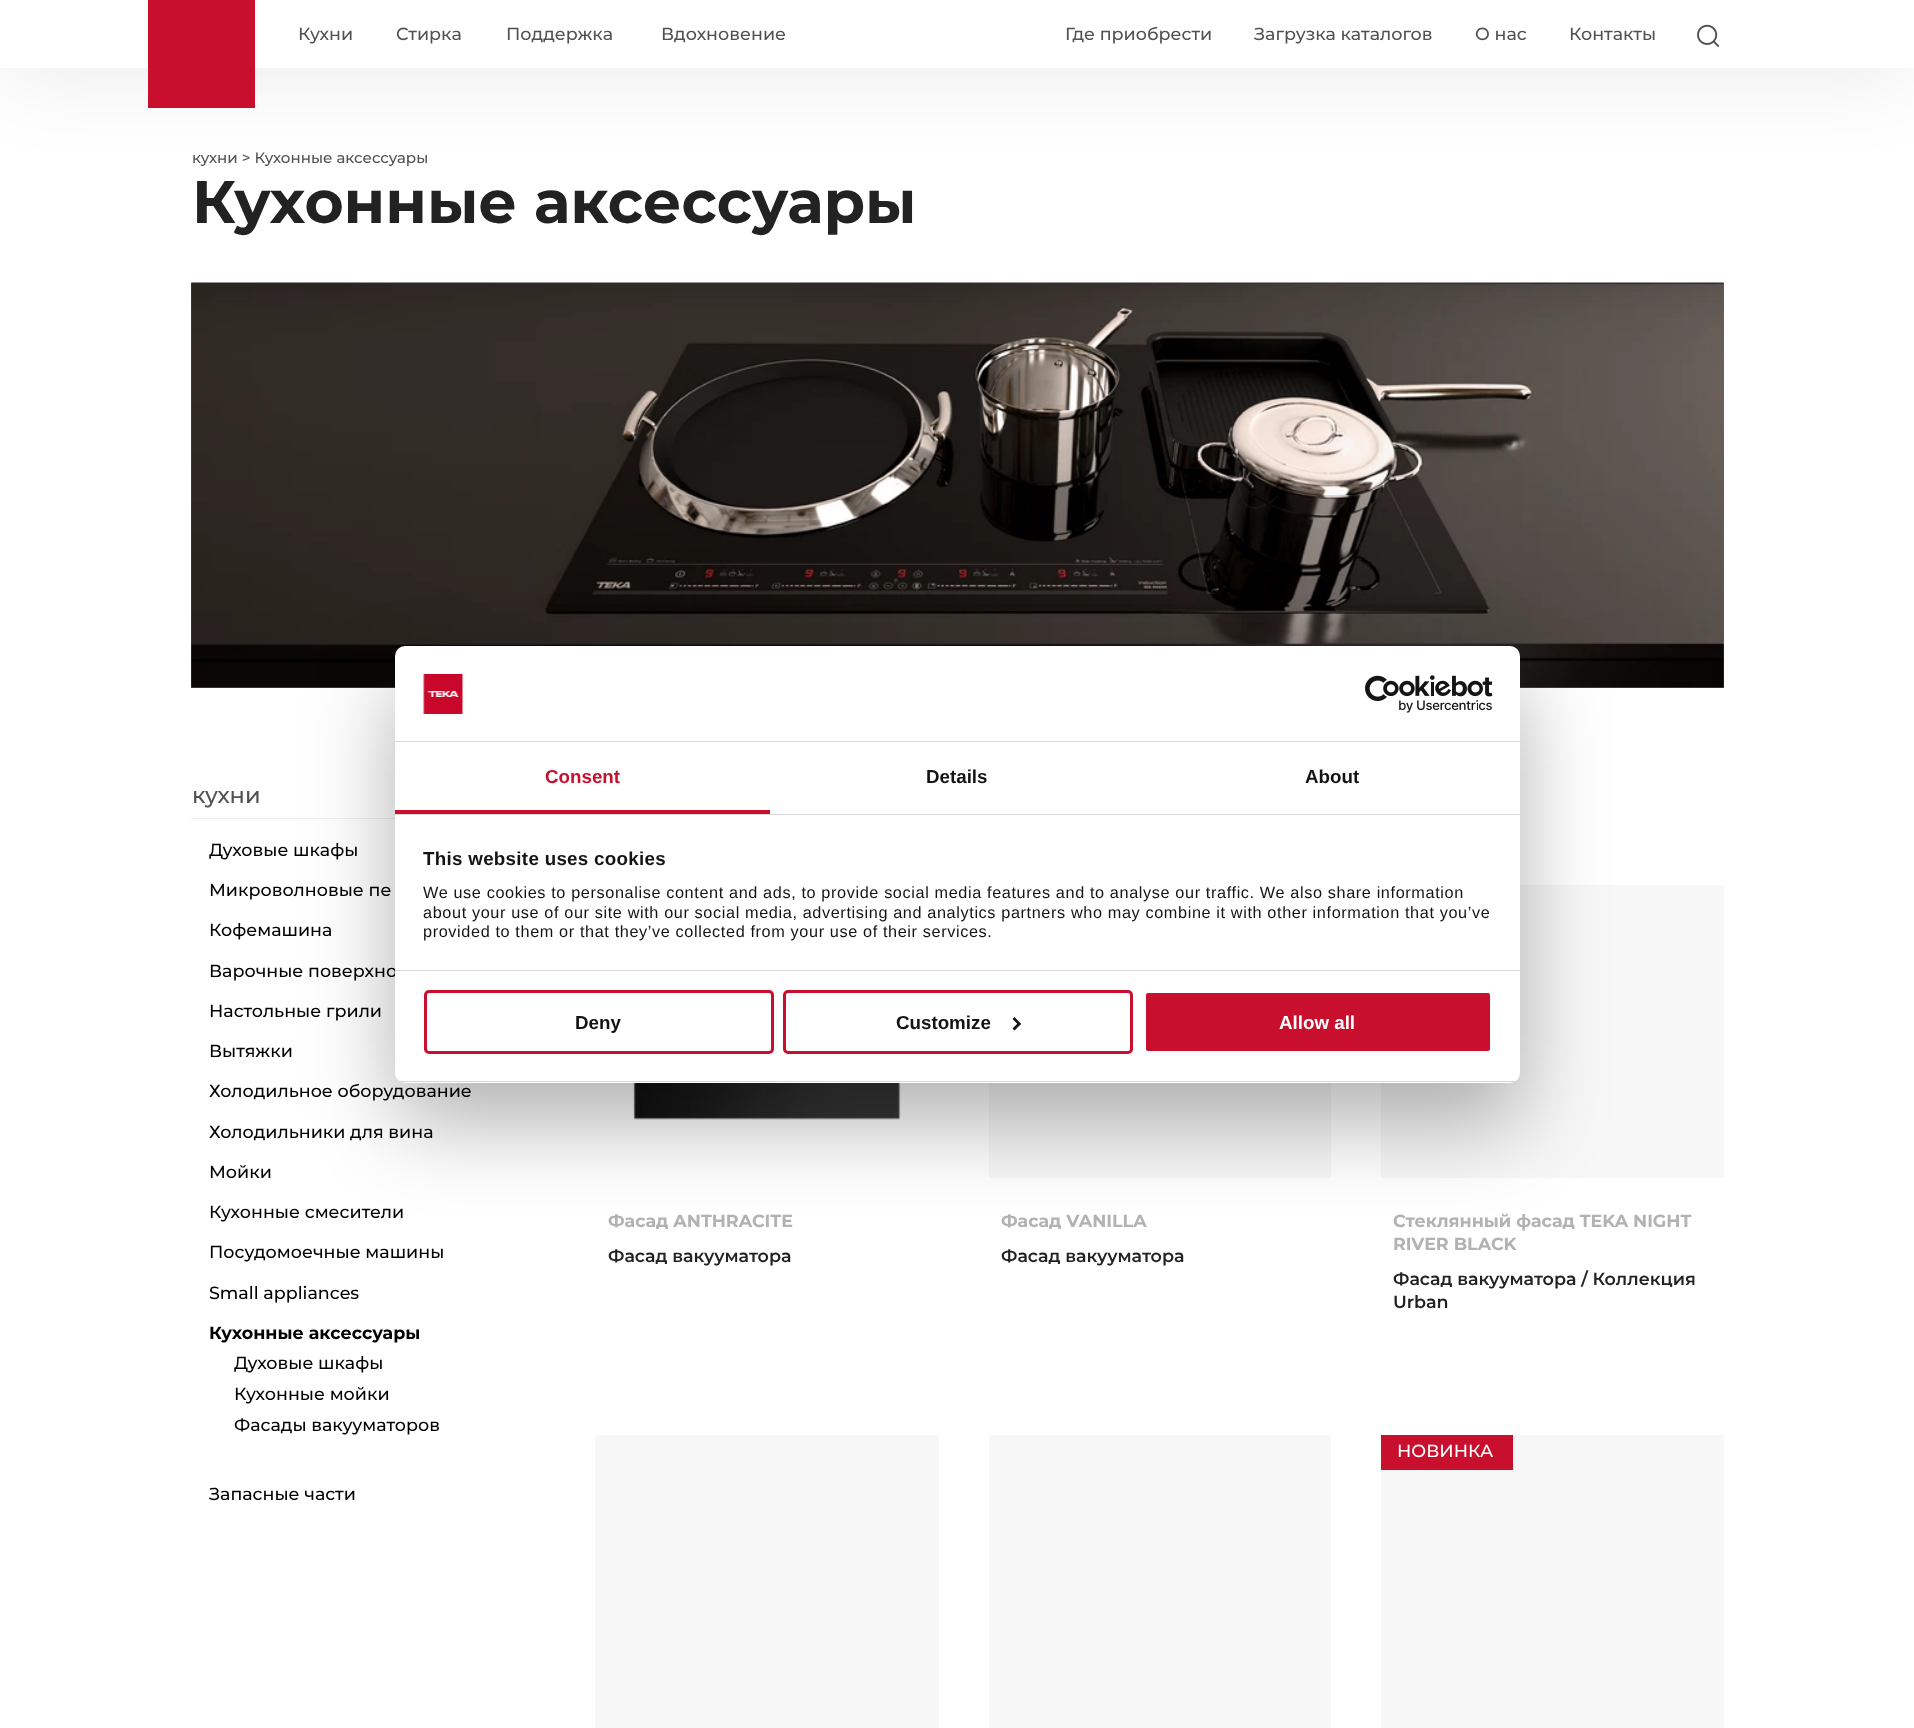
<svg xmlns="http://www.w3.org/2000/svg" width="1914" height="1728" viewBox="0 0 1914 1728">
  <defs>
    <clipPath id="clip1"><rect x="395" y="646" width="1125" height="437" rx="10"/></clipPath>
  </defs>
  <rect width="100%" height="100%" fill="#fff"/>
  <path d="M0 0h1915v68H0z" fill="#0000001a" filter="blur(44px)"/>
  <path d="M0 0h1914v68H0z" fill="#fff"/>
  <path d="M148 0h107v108H148z" fill="#c8102e"/>
  <image x="1697" y="24" width="23" height="23" href="img/1.png"/>
  <path d="M191 283h1533v405H191z" fill="#646569"/>
  <image x="191" y="282" width="1533" height="406" href="img/2.png"/>
  <path d="M191 818h204v1H191z" fill="#ededed"/>
  <image x="633" y="1083" width="268" height="37" href="img/3.png"/>
  <path d="M989 1083h342v95H989z" fill="#f7f7f7"/>
  <path d="M1381 885h343v293H1381z" fill="#f7f7f7"/>
  <path d="M595 1435h344v293H595z" fill="#f7f7f7"/>
  <path d="M989 1435h342v293H989z" fill="#f7f7f7"/>
  <path d="M1381 1435h343v293H1381z" fill="#f7f7f7"/>
  <path d="M1381 1435h132v35H1381z" fill="#c8102e"/>
  <rect x="395" y="686" width="1125" height="437" rx="10" fill="#0000004d" filter="blur(42.5px)"/>
  <g font-family="Montserrat" font-size="17.5" font-weight="100" fill="#515151">
    <text x="298" y="40">Кухни</text>
    <text x="396" y="40">Стирка</text>
    <text x="506" y="40">Поддержка</text>
    <text x="661" y="40">Вдохновение</text>
    <text x="1065" y="40">Где приобрести</text>
    <text x="1254" y="40">Загрузка каталогов</text>
    <text x="1475" y="40">О нас</text>
    <text x="1569" y="40">Контакты</text>
  </g>
  <text x="192" y="163" font-family="Montserrat" font-size="15" font-weight="100" fill="#515151">кухни &gt; Кухонные аксессуары</text>
  <text x="192" y="223" font-family="'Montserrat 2'" font-size="60" font-weight="100" fill="#222">Кухонные аксессуары</text>
  <text x="192" y="803" font-family="Montserrat" font-size="22.5" font-weight="100" fill="#515151">кухни</text>
  <g font-family="Montserrat" font-size="17.5" font-weight="100" fill="#000">
    <text x="209" y="856">Духовые шкафы</text>
    <text x="209" y="896">Микроволновые пе</text>
    <text x="209" y="936">Кофемашина</text>
    <text x="209" y="977">Варочные поверхно</text>
    <text x="209" y="1017">Настольные грили</text>
    <text x="209" y="1057">Вытяжки</text>
    <text x="209" y="1097">Холодильное оборудование</text>
    <text x="209" y="1138">Холодильники для вина</text>
    <text x="209" y="1178">Мойки</text>
    <text x="209" y="1218">Кухонные смесители</text>
    <text x="209" y="1258">Посудомоечные машины</text>
    <text x="209" y="1299">Small appliances</text>
  </g>
  <text x="209" y="1339" font-family="'Montserrat 2'" font-size="17.5" font-weight="100" fill="#000">Кухонные аксессуары</text>
  <g font-family="Montserrat" font-size="17.5" font-weight="100" fill="#000">
    <text x="234" y="1369">Духовые шкафы</text>
    <text x="234" y="1400">Кухонные мойки</text>
    <text x="234" y="1431">Фасады вакууматоров</text>
    <text x="209" y="1500">Запасные части</text>
  </g>
  <text x="608" y="1227" font-family="'Montserrat 2'" font-size="17.5" font-weight="100" fill="#b2b2b2">Фасад ANTHRACITE</text>
  <text x="608" y="1262" font-family="'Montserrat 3'" font-size="17.5" font-weight="100" fill="#222">Фасад вакууматора</text>
  <text x="1001" y="1227" font-family="'Montserrat 2'" font-size="17.5" font-weight="100" fill="#b2b2b2">Фасад VANILLA</text>
  <text x="1001" y="1262" font-family="'Montserrat 3'" font-size="17.5" font-weight="100" fill="#222">Фасад вакууматора</text>
  <g font-family="'Montserrat 2'" font-size="17.5" font-weight="100" fill="#b2b2b2">
    <text x="1393" y="1227">Стеклянный фасад TEKA NIGHT</text>
    <text x="1393" y="1250">RIVER BLACK</text>
  </g>
  <g font-family="'Montserrat 3'" font-size="17.5" font-weight="100" fill="#222">
    <text x="1393" y="1285">Фасад вакууматора / Коллекция</text>
    <text x="1393" y="1308">Urban</text>
  </g>
  <text x="1397" y="1457" font-family="Montserrat" font-size="17.5" font-weight="100" fill="#fff">НОВИНКА</text>
  <rect x="395" y="646" width="1125" height="437" rx="10" fill="#fff"/>
  <path d="M395 741h1125v1H395z" fill="#d6d6d6"/>
  <image x="423" y="673" width="40" height="41" href="img/4.png"/>
  <image x="1365" y="675" width="128" height="38" href="img/5.png"/>
  <path d="M395 814h1125v1H395z" fill="#d6d6d6"/>
  <path d="M395 810h375v4H395z" fill="#c8102e"/>
  <text x="545" y="783" font-family="Liberation Sans" font-size="18.75" font-weight="bold" fill="#c8102e">Consent</text>
  <g font-family="Liberation Sans" font-size="18.75" font-weight="bold" fill="#141414">
    <text x="926" y="783">Details</text>
    <text x="1305" y="783">About</text>
  </g>
  <path d="M395 970h1125v1H395z" fill="#d6d6d6"/>
  <text x="423" y="865" font-family="Liberation Sans" font-size="18.75" font-weight="bold" letter-spacing="0.3" fill="#141414">This website uses cookies</text>
  <g font-family="Liberation Sans" font-size="16.25" letter-spacing="0.62" fill="#141414">
    <text x="423" y="898">We use cookies to personalise content and ads, to provide social media features and to analyse our traffic. We also share information</text>
    <text x="423" y="918">about your use of our site with our social media, advertising and analytics partners who may combine it with other information that you’ve</text>
    <text x="423" y="937">provided to them or that they’ve collected from your use of their services.</text>
  </g>
  <g clip-path="url(#clip1)">
    <path d="M395 1081h1125v1H395z" fill="#d6d6d6"/>
  </g>
  <rect x="425.5" y="991.5" width="347" height="61" rx="3.5" fill="none" stroke="#c8102e" stroke-width="3"/>
  <text x="575" y="1029" font-family="Liberation Sans" font-size="18.75" font-weight="bold" fill="#141414">Deny</text>
  <rect x="784.5" y="991.5" width="347" height="61" rx="3.5" fill="none" stroke="#c8102e" stroke-width="3"/>
  <text x="896" y="1029" font-family="Liberation Sans" font-size="18.75" font-weight="bold" fill="#141414">Customize</text>
  <path d="M1014.5 1017L1021 1024L1019 1025.5L1012.5 1019Z" fill="#141414"/>
  <path d="M1019 1022L1021 1024L1014.5 1030.5L1012.5 1028.5Z" fill="#141414"/>
  <rect x="1144.5" y="991.5" width="347" height="61" rx="3.5" fill="#c8102e" stroke="#fff" stroke-width="3"/>
  <text x="1279" y="1029" font-family="Liberation Sans" font-size="18.75" font-weight="bold" fill="#fff">Allow all</text>
</svg>
